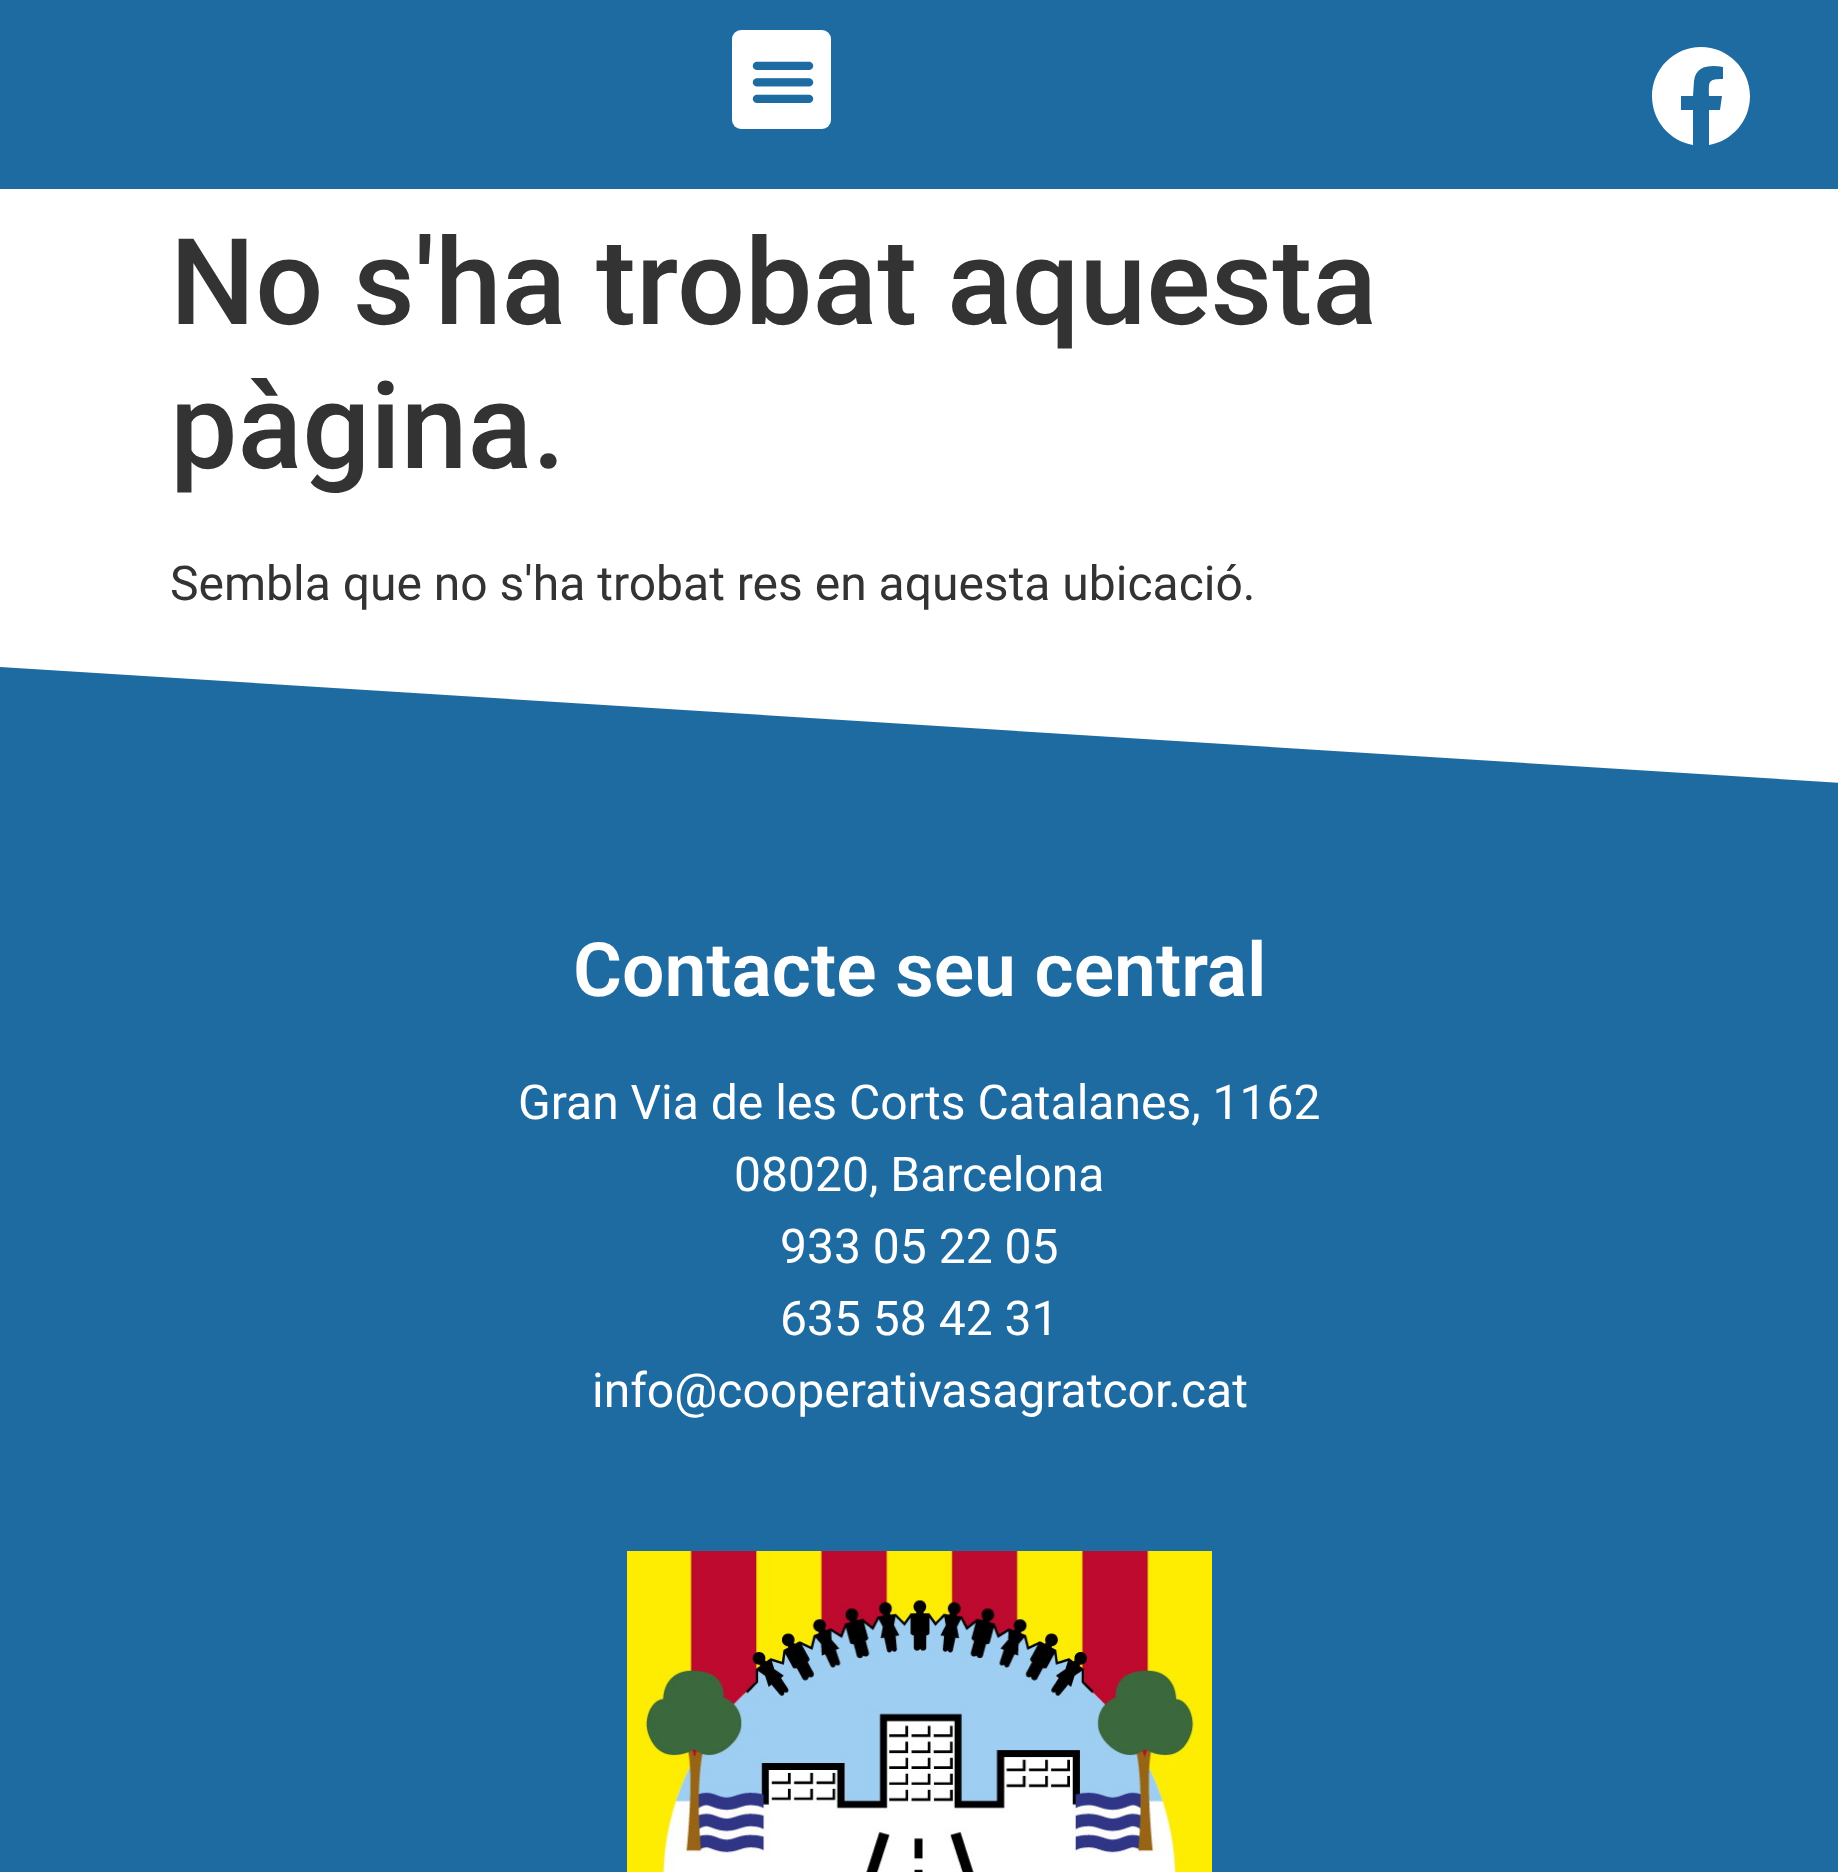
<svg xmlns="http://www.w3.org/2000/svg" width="1838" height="1872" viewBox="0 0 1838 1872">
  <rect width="100%" height="100%" fill="#fff"/>
  <path d="M0 0h1838v189H0z" fill="#1e6ba2"/>
  <rect x="732" y="30" width="99" height="99" rx="9" fill="#fff"/>
  <image x="752" y="61" width="62" height="42" href="img/1.png"/>
  <path d="M1750 96C1750 69 1728 47 1701 47C1674 47 1652 69 1652 96C1652 121 1670 141 1693 145V110H1681V96H1693L1694 81C1696 65 1711 65 1723 67V79C1707 79 1709 82 1709 96H1722L1720 110H1709V145C1732 141 1750 121 1750 96Z" fill="#fff"/>
  <path d="M0 667h1838v1205H0z" fill="#1e6ba2"/>
  <path d="M0 667V660H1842V783Z" fill="#fff"/>
  <image x="627" y="1551" width="585" height="321" href="img/2.png"/>
  <g font-family="Roboto" font-size="120" font-weight="500" fill="#333">
    <text x="170" y="324">No s'ha trobat aquesta</text>
    <text x="170" y="468">pàgina.</text>
  </g>
  <text x="170" y="600" font-family="Roboto" font-size="48" fill="#333">Sembla que no s'ha trobat res en aquesta ubicació.</text>
  <text x="573" y="996" font-family="Roboto" font-size="75" font-weight="600" fill="#fff">Contacte seu central</text>
  <g font-family="Roboto" font-size="48" fill="#fff">
    <text x="518" y="1119">Gran Via de les Corts Catalanes, 1162</text>
    <text x="734" y="1191">08020, Barcelona</text>
    <text x="780" y="1263">933 05 22 05</text>
    <text x="780" y="1335">635 58 42 31</text>
    <text x="592" y="1407">info@cooperativasagratcor.cat</text>
  </g>
</svg>
